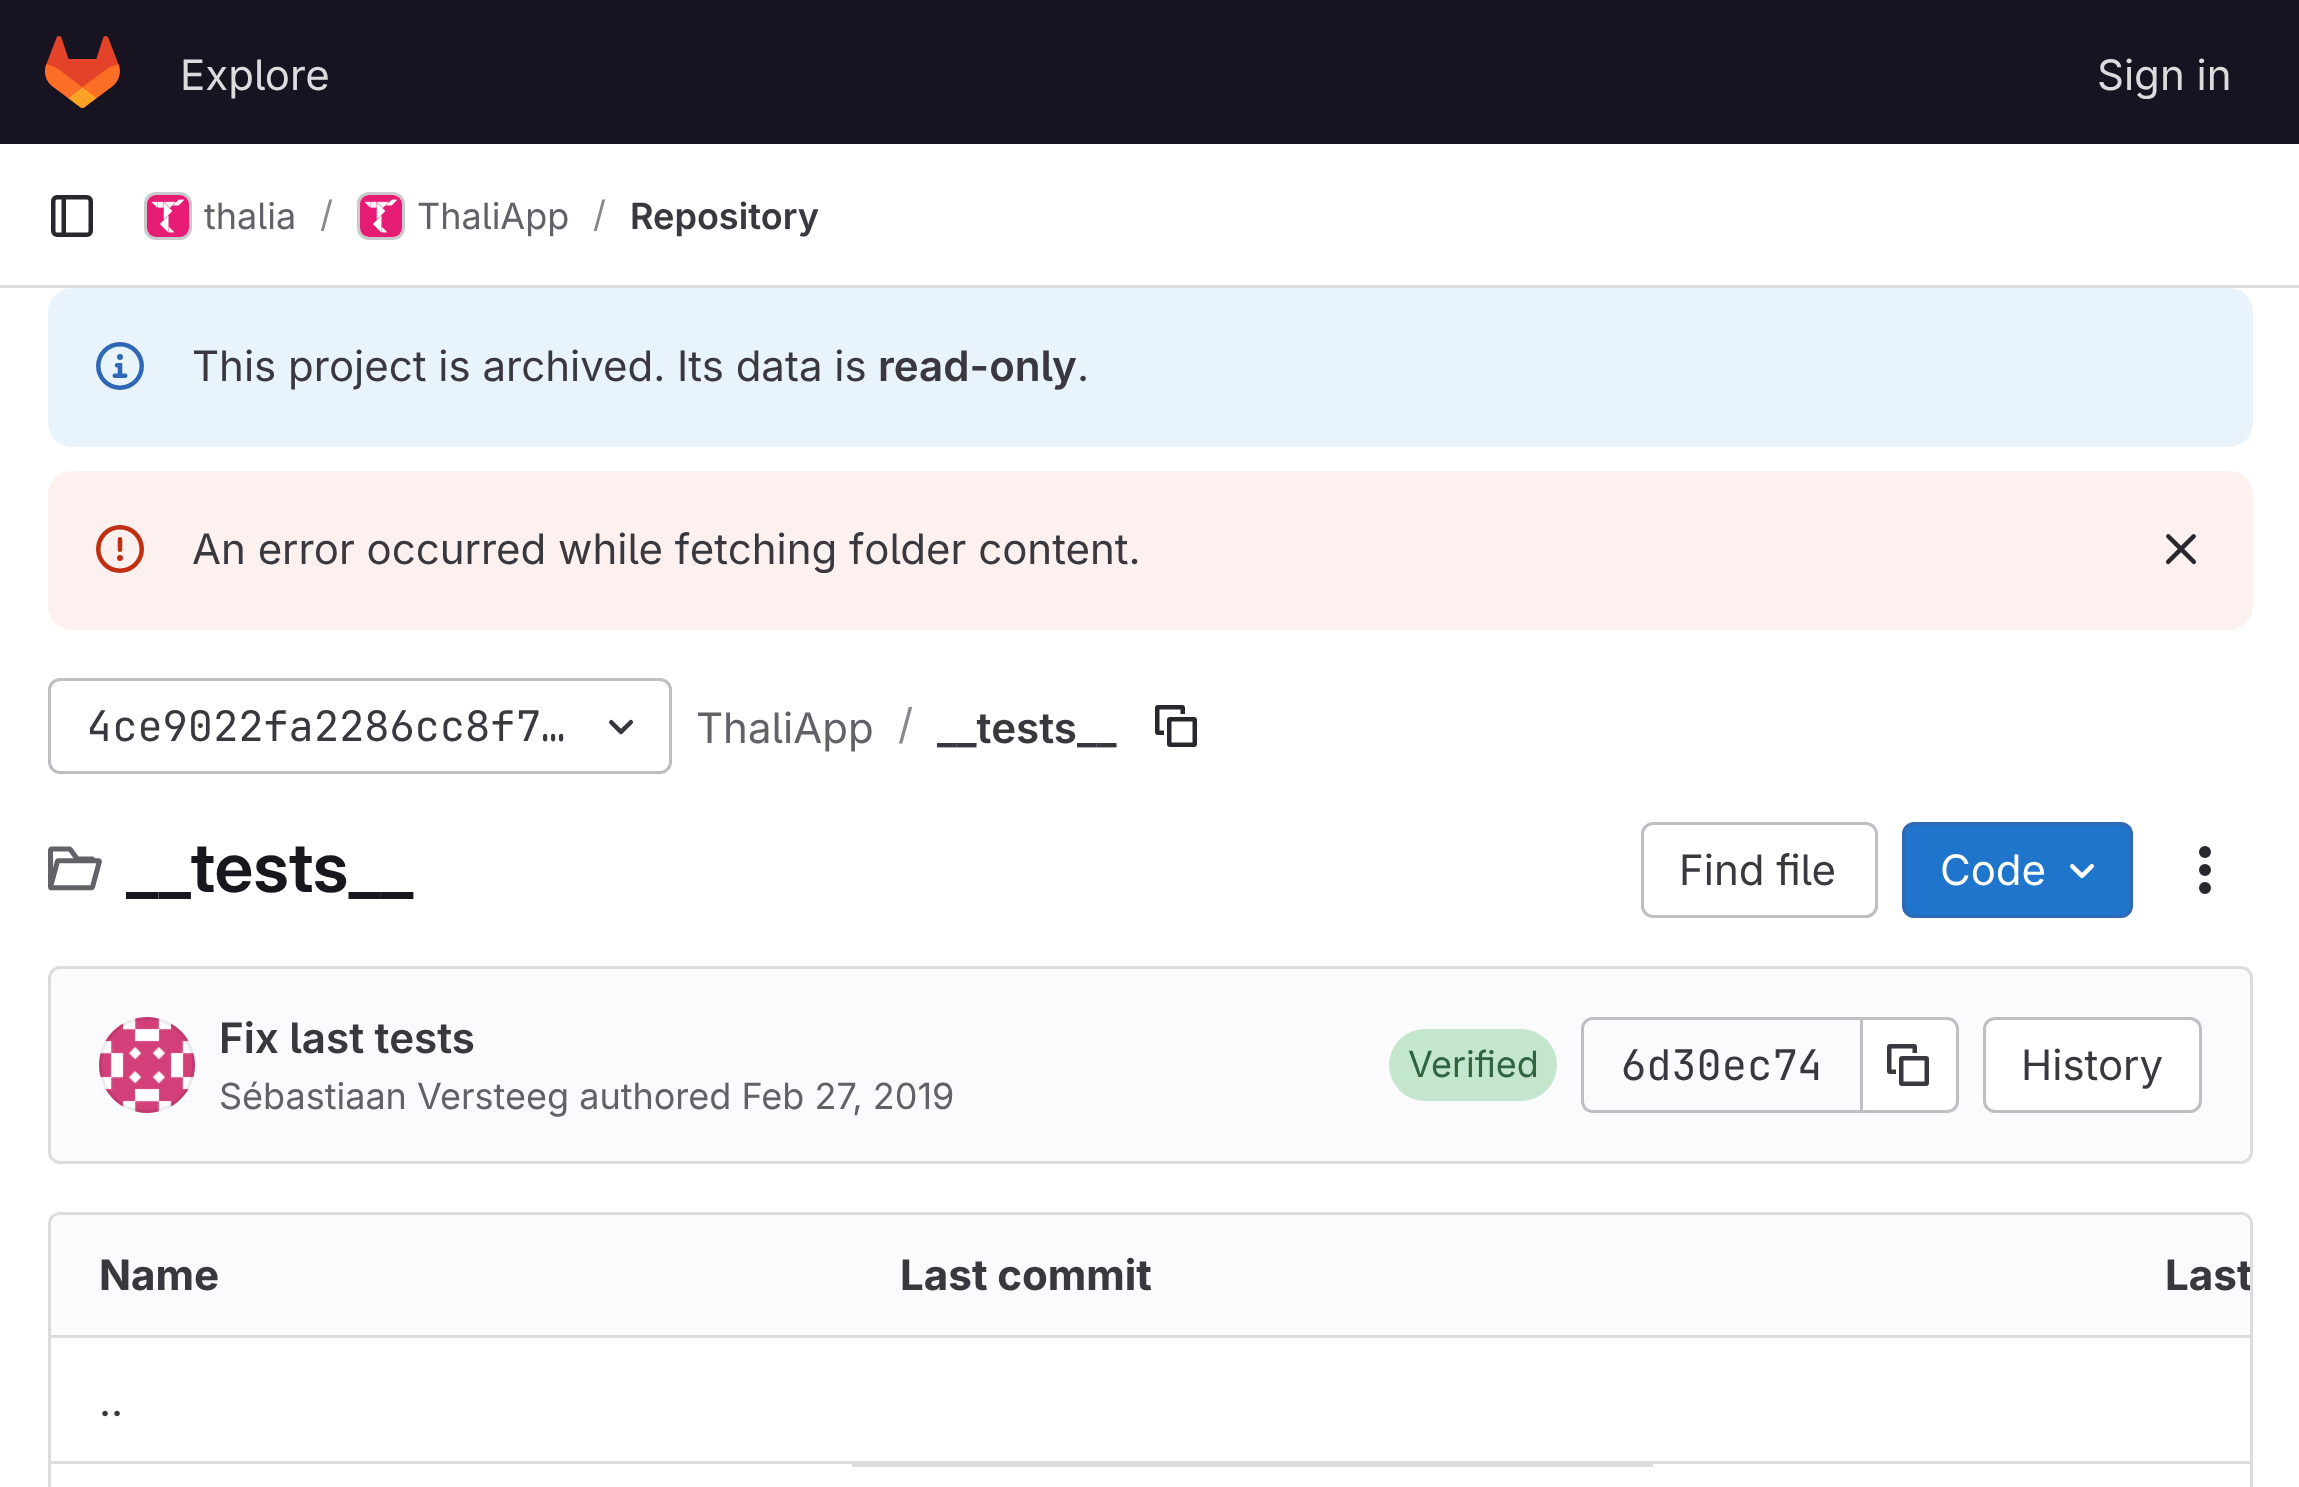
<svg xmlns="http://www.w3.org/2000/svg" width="2299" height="1487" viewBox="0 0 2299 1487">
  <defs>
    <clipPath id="clip1"><rect x="51" y="1215" width="2199" height="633" rx="9"/></clipPath>
  </defs>
  <rect width="100%" height="100%" fill="#fff"/>
  <path d="M0 0h2299v144H0z" fill="#171321"/>
  <image x="45" y="36" width="75" height="72" href="img/1.png"/>
  <path d="M0 285h2299v3H0z" fill="#dcdcde"/>
  <image x="51" y="195" width="42" height="42" href="img/2.png"/>
  <rect x="145.5" y="193.5" width="45" height="45" rx="10.5" fill="none" stroke="#dcdcde" stroke-width="3"/>
  <image x="147" y="195" width="42" height="42" href="img/3.png"/>
  <rect x="145.5" y="193.5" width="45" height="45" rx="10.5" fill="none" stroke="#05050614" stroke-width="3"/>
  <rect x="358.5" y="193.5" width="45" height="45" rx="10.5" fill="none" stroke="#dcdcde" stroke-width="3"/>
  <image x="360" y="195" width="42" height="42" href="img/4.png"/>
  <rect x="358.5" y="193.5" width="45" height="45" rx="10.5" fill="none" stroke="#05050614" stroke-width="3"/>
  <rect x="48" y="288" width="2205" height="159" rx="24" fill="#e9f3fc"/>
  <image x="96" y="342" width="48" height="48" href="img/5.png"/>
  <rect x="48" y="471" width="2205" height="159" rx="24" fill="#fcf1ef"/>
  <image x="96" y="525" width="48" height="48" href="img/6.png"/>
  <image x="2165" y="534" width="32" height="31" href="img/7.png"/>
  <rect x="49.5" y="679.5" width="621" height="93" rx="10.5" fill="none" stroke="#bfbfc3" stroke-width="3"/>
  <image x="608" y="719" width="26" height="16" href="img/8.png"/>
  <image x="1155" y="705" width="42" height="42" href="img/9.png"/>
  <image x="48" y="846" width="54" height="45" href="img/10.png"/>
  <rect x="1642.5" y="823.5" width="234" height="93" rx="10.5" fill="none" stroke="#bfbfc3" stroke-width="3"/>
  <rect x="1903.5" y="823.5" width="228" height="93" rx="10.5" fill="#1f75cb" stroke="#2f68b4" stroke-width="3"/>
  <image x="2069" y="863" width="26" height="16" href="img/11.png"/>
  <image x="2199" y="846" width="12" height="48" href="img/12.png"/>
  <rect x="49.5" y="967.5" width="2202" height="195" rx="10.5" fill="#fbfafd" stroke="#dcdcde" stroke-width="3"/>
  <image x="99" y="1017" width="96" height="96" href="img/13.png"/>
  <circle cx="147" cy="1065" r="46.5" fill="none" stroke="#05050614" stroke-width="3"/>
  <rect x="1389" y="1029" width="168" height="72" rx="36" fill="#c3e6cd"/>
  <path d="M1593 1017H1860V1113H1593C1586 1113 1581 1108 1581 1101V1029C1581 1022 1586 1017 1593 1017ZM1593 1020H1860V1110H1593C1588 1110 1584 1106 1584 1101V1029C1584 1024 1588 1020 1593 1020Z" fill="#bfbfc3" fill-rule="evenodd"/>
  <path d="M1863 1020H1947C1952 1020 1956 1024 1956 1029V1101C1956 1106 1952 1110 1947 1110H1863Z" fill="#fff"/>
  <path d="M1863 1017H1947C1954 1017 1959 1022 1959 1029V1101C1959 1108 1954 1113 1947 1113H1863ZM1863 1020H1947C1952 1020 1956 1024 1956 1029V1101C1956 1106 1952 1110 1947 1110H1863Z" fill="#bfbfc3" fill-rule="evenodd"/>
  <path d="M1860 1017h3v96H1860z" fill="#bfbfc3"/>
  <image x="1887" y="1044" width="42" height="42" href="img/14.png"/>
  <rect x="1984.5" y="1018.5" width="216" height="93" rx="10.5" fill="#fff" stroke="#bfbfc3" stroke-width="3"/>
  <rect x="49.5" y="1213.5" width="2202" height="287" rx="10.5" fill="none" stroke="#dcdcde" stroke-width="3"/>
  <path d="M60 1215H852V1338H51V1224C51 1219 55 1215 60 1215Z" fill="#fbfafd"/>
  <path d="M852 1215h801v120H852z" fill="#fbfafd"/>
  <path d="M1653 1215H2241C2246 1215 2250 1219 2250 1224V1338H1653Z" fill="#fbfafd"/>
  <path d="M51 1461h2199v3H51z" fill="#dcdcde"/>
  <path d="M51 1335h2199v3H51z" fill="#dcdcde"/>
  <path d="M852 1464h801v3H852z" fill="#dcdcde"/>
  <g font-family="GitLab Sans" font-size="42" fill="#dcdcde">
    <text x="180" y="90">Explore</text>
    <text x="2097" y="90">Sign in</text>
  </g>
  <text x="204" y="229" font-family="GitLab Sans" font-size="36" fill="#626168">thalia</text>
  <text x="320" y="227" font-family="GitLab Sans" font-size="36" fill="#89888d">/</text>
  <text x="417" y="229" font-family="GitLab Sans" font-size="36" fill="#626168">ThaliApp</text>
  <text x="593" y="227" font-family="GitLab Sans" font-size="36" fill="#89888d">/</text>
  <text x="630" y="229" font-family="GitLab Sans" font-size="36" font-weight="600" fill="#3a383f">Repository</text>
  <text x="192" y="381" font-family="GitLab Sans" font-size="42" fill="#3a383f">This project is archived. Its data is</text>
  <text x="878" y="381" font-family="GitLab Sans" font-size="42" font-weight="600" fill="#3a383f">read-only</text>
  <g font-family="GitLab Sans" font-size="42" fill="#3a383f">
    <text x="1077" y="381">.</text>
    <text x="192" y="564">An error occurred while fetching folder content.</text>
  </g>
  <text x="87" y="741" font-family="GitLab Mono" font-size="42" fill="#3a383f">4ce9022fa2286cc8f7…</text>
  <text x="696" y="743" font-family="GitLab Sans" font-size="42" fill="#626168">ThaliApp</text>
  <text x="898" y="739" font-family="GitLab Sans" font-size="42" fill="#89888d">/</text>
  <text x="937" y="743" font-family="GitLab Sans" font-size="42" font-weight="600" fill="#3a383f">__tests__</text>
  <text x="126" y="892" font-family="'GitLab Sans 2'" font-size="69" font-weight="600" fill="#18171d">__tests__</text>
  <text x="1679" y="885" font-family="GitLab Sans" font-size="42" fill="#3a383f">Find file</text>
  <text x="1940" y="885" font-family="GitLab Sans" font-size="42" fill="#fff">Code</text>
  <text x="219" y="1053" font-family="GitLab Sans" font-size="42" font-weight="600" fill="#3a383f">Fix last tests</text>
  <text x="219" y="1109" font-family="GitLab Sans" font-size="36" fill="#626168">Sébastiaan Versteeg authored Feb 27, 2019</text>
  <text x="1408" y="1077" font-family="GitLab Sans" font-size="36" fill="#306440">Verified</text>
  <text x="1621" y="1080" font-family="GitLab Mono" font-size="42" fill="#3a383f">6d30ec74</text>
  <text x="2021" y="1080" font-family="GitLab Sans" font-size="42" fill="#3a383f">History</text>
  <g font-family="GitLab Sans" font-size="42" font-weight="bold" fill="#3a383f">
    <text x="99" y="1290">Name</text>
    <text x="900" y="1290">Last commit</text>
  </g>
  <g clip-path="url(#clip1)">
    <text x="2165" y="1290" font-family="GitLab Sans" font-size="42" font-weight="bold" fill="#3a383f">Last</text>
  </g>
  <text x="99" y="1416" font-family="GitLab Sans" font-size="42" fill="#3a383f">..</text>
</svg>
